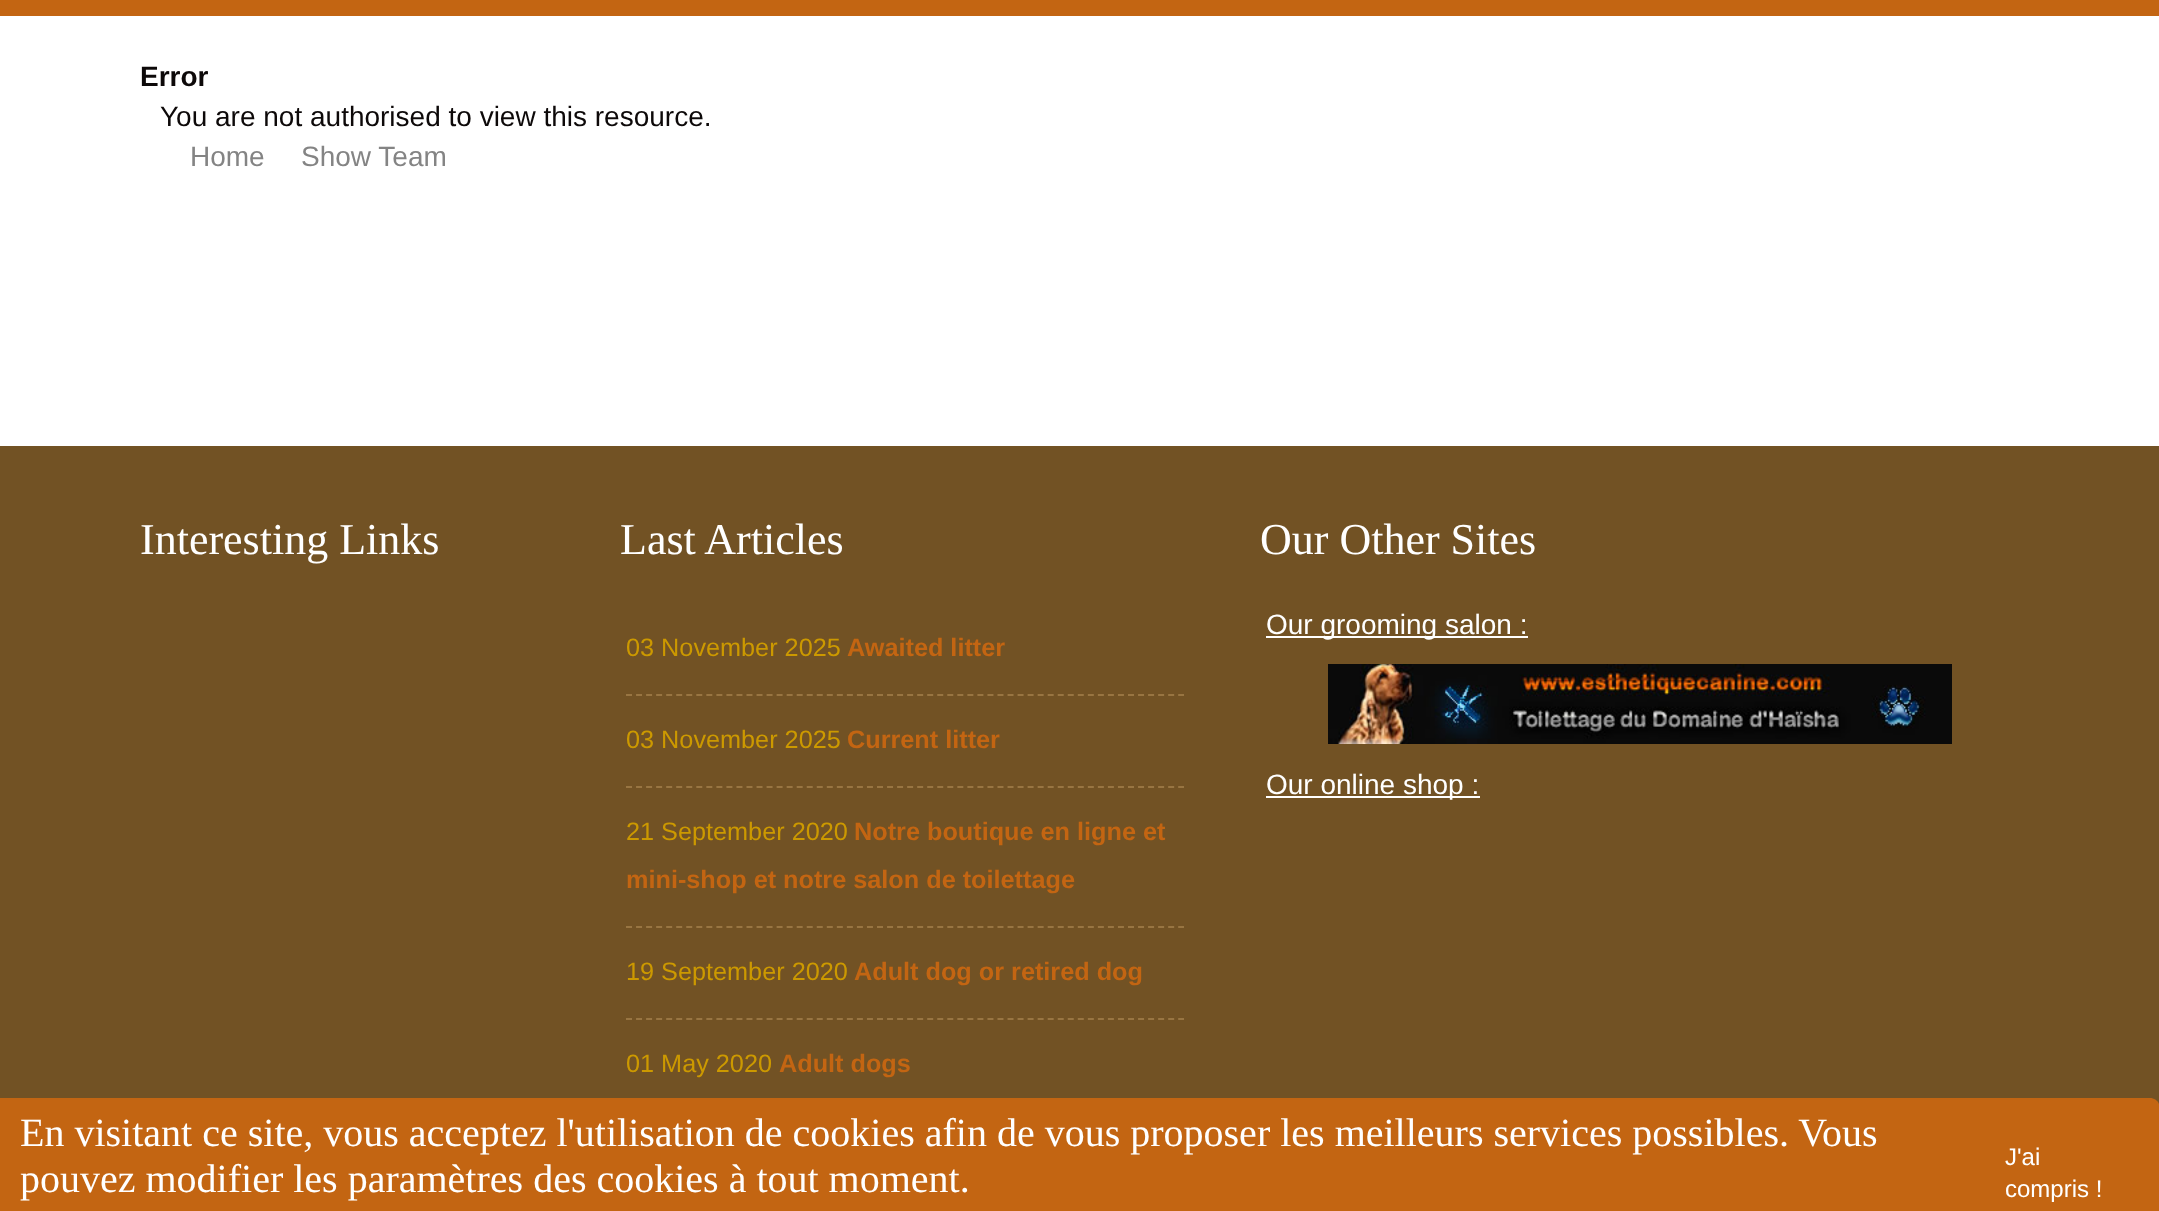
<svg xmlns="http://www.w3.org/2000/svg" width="2159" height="1211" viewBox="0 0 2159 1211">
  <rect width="100%" height="100%" fill="#fff"/>
  <path d="M0 0h2159v16H0z" fill="#c36512"/>
  <path d="M0 446h2159v658H0z" fill="#725224"/>
  <path d="M626 695H1184" fill="none" stroke="#987542" stroke-width="2" stroke-dasharray="6 4.04"/>
  <path d="M626 787H1184" fill="none" stroke="#987542" stroke-width="2" stroke-dasharray="6 4.04"/>
  <path d="M626 927H1184" fill="none" stroke="#987542" stroke-width="2" stroke-dasharray="6 4.04"/>
  <path d="M626 1019H1184" fill="none" stroke="#987542" stroke-width="2" stroke-dasharray="6 4.04"/>
  <path d="M1266 636h262v2H1266z" fill="#fff"/>
  <image x="1328" y="664" width="624" height="80" href="img/1.png"/>
  <path d="M1266 796h214v2H1266z" fill="#fff"/>
  <path d="M0 1098H2150C2155.5 1098 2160 1102.5 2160 1108V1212H-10V1108C-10 1102.5-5.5 1098 0 1098Z" fill="#c36512"/>
  <text x="140" y="86" font-family="Liberation Sans" font-size="28" font-weight="bold" fill="#0d0909">Error</text>
  <text x="160" y="126" font-family="Liberation Sans" font-size="28" fill="#0d0909">You are not authorised to view this resource.</text>
  <g font-family="Liberation Sans" font-size="28" fill="#848484">
    <text x="190" y="166">Home</text>
    <text x="301" y="166">Show Team</text>
  </g>
  <g font-family="Liberation Serif" font-size="44" fill="#fff">
    <text x="140" y="554">Interesting Links</text>
    <text x="620" y="554">Last Articles</text>
  </g>
  <text x="626" y="656" font-family="Liberation Sans" font-size="25.25" fill="#c90">03 November 2025</text>
  <text x="847" y="656" font-family="Liberation Sans" font-size="25.25" font-weight="bold" fill="#c36512">Awaited litter</text>
  <text x="626" y="748" font-family="Liberation Sans" font-size="25.25" fill="#c90">03 November 2025</text>
  <text x="847" y="748" font-family="Liberation Sans" font-size="25.25" font-weight="bold" fill="#c36512">Current litter</text>
  <text x="626" y="840" font-family="Liberation Sans" font-size="25.25" fill="#c90">21 September 2020</text>
  <g font-family="Liberation Sans" font-size="25.25" font-weight="bold" fill="#c36512">
    <text x="854" y="840">Notre boutique en ligne et</text>
    <text x="626" y="888">mini-shop et notre salon de toilettage</text>
  </g>
  <text x="626" y="980" font-family="Liberation Sans" font-size="25.25" fill="#c90">19 September 2020</text>
  <text x="854" y="980" font-family="Liberation Sans" font-size="25.25" font-weight="bold" fill="#c36512">Adult dog or retired dog</text>
  <text x="626" y="1072" font-family="Liberation Sans" font-size="25.25" fill="#c90">01 May 2020</text>
  <text x="779" y="1072" font-family="Liberation Sans" font-size="25.25" font-weight="bold" fill="#c36512">Adult dogs</text>
  <text x="1260" y="554" font-family="Liberation Serif" font-size="44" fill="#fff">Our Other Sites</text>
  <g font-family="Liberation Sans" font-size="28" fill="#fff">
    <text x="1266" y="634">Our grooming salon :</text>
    <text x="1266" y="794">Our online shop :</text>
  </g>
  <g font-family="Liberation Serif" font-size="40" fill="#fff">
    <text x="20" y="1146">En visitant ce site, vous acceptez l'utilisation de cookies afin de vous proposer les meilleurs services possibles. Vous</text>
    <text x="20" y="1192">pouvez modifier les paramètres des cookies à tout moment.</text>
  </g>
  <g font-family="Liberation Sans" font-size="24" fill="#fff">
    <text x="2005" y="1165">J'ai</text>
    <text x="2005" y="1197">compris !</text>
  </g>
</svg>
